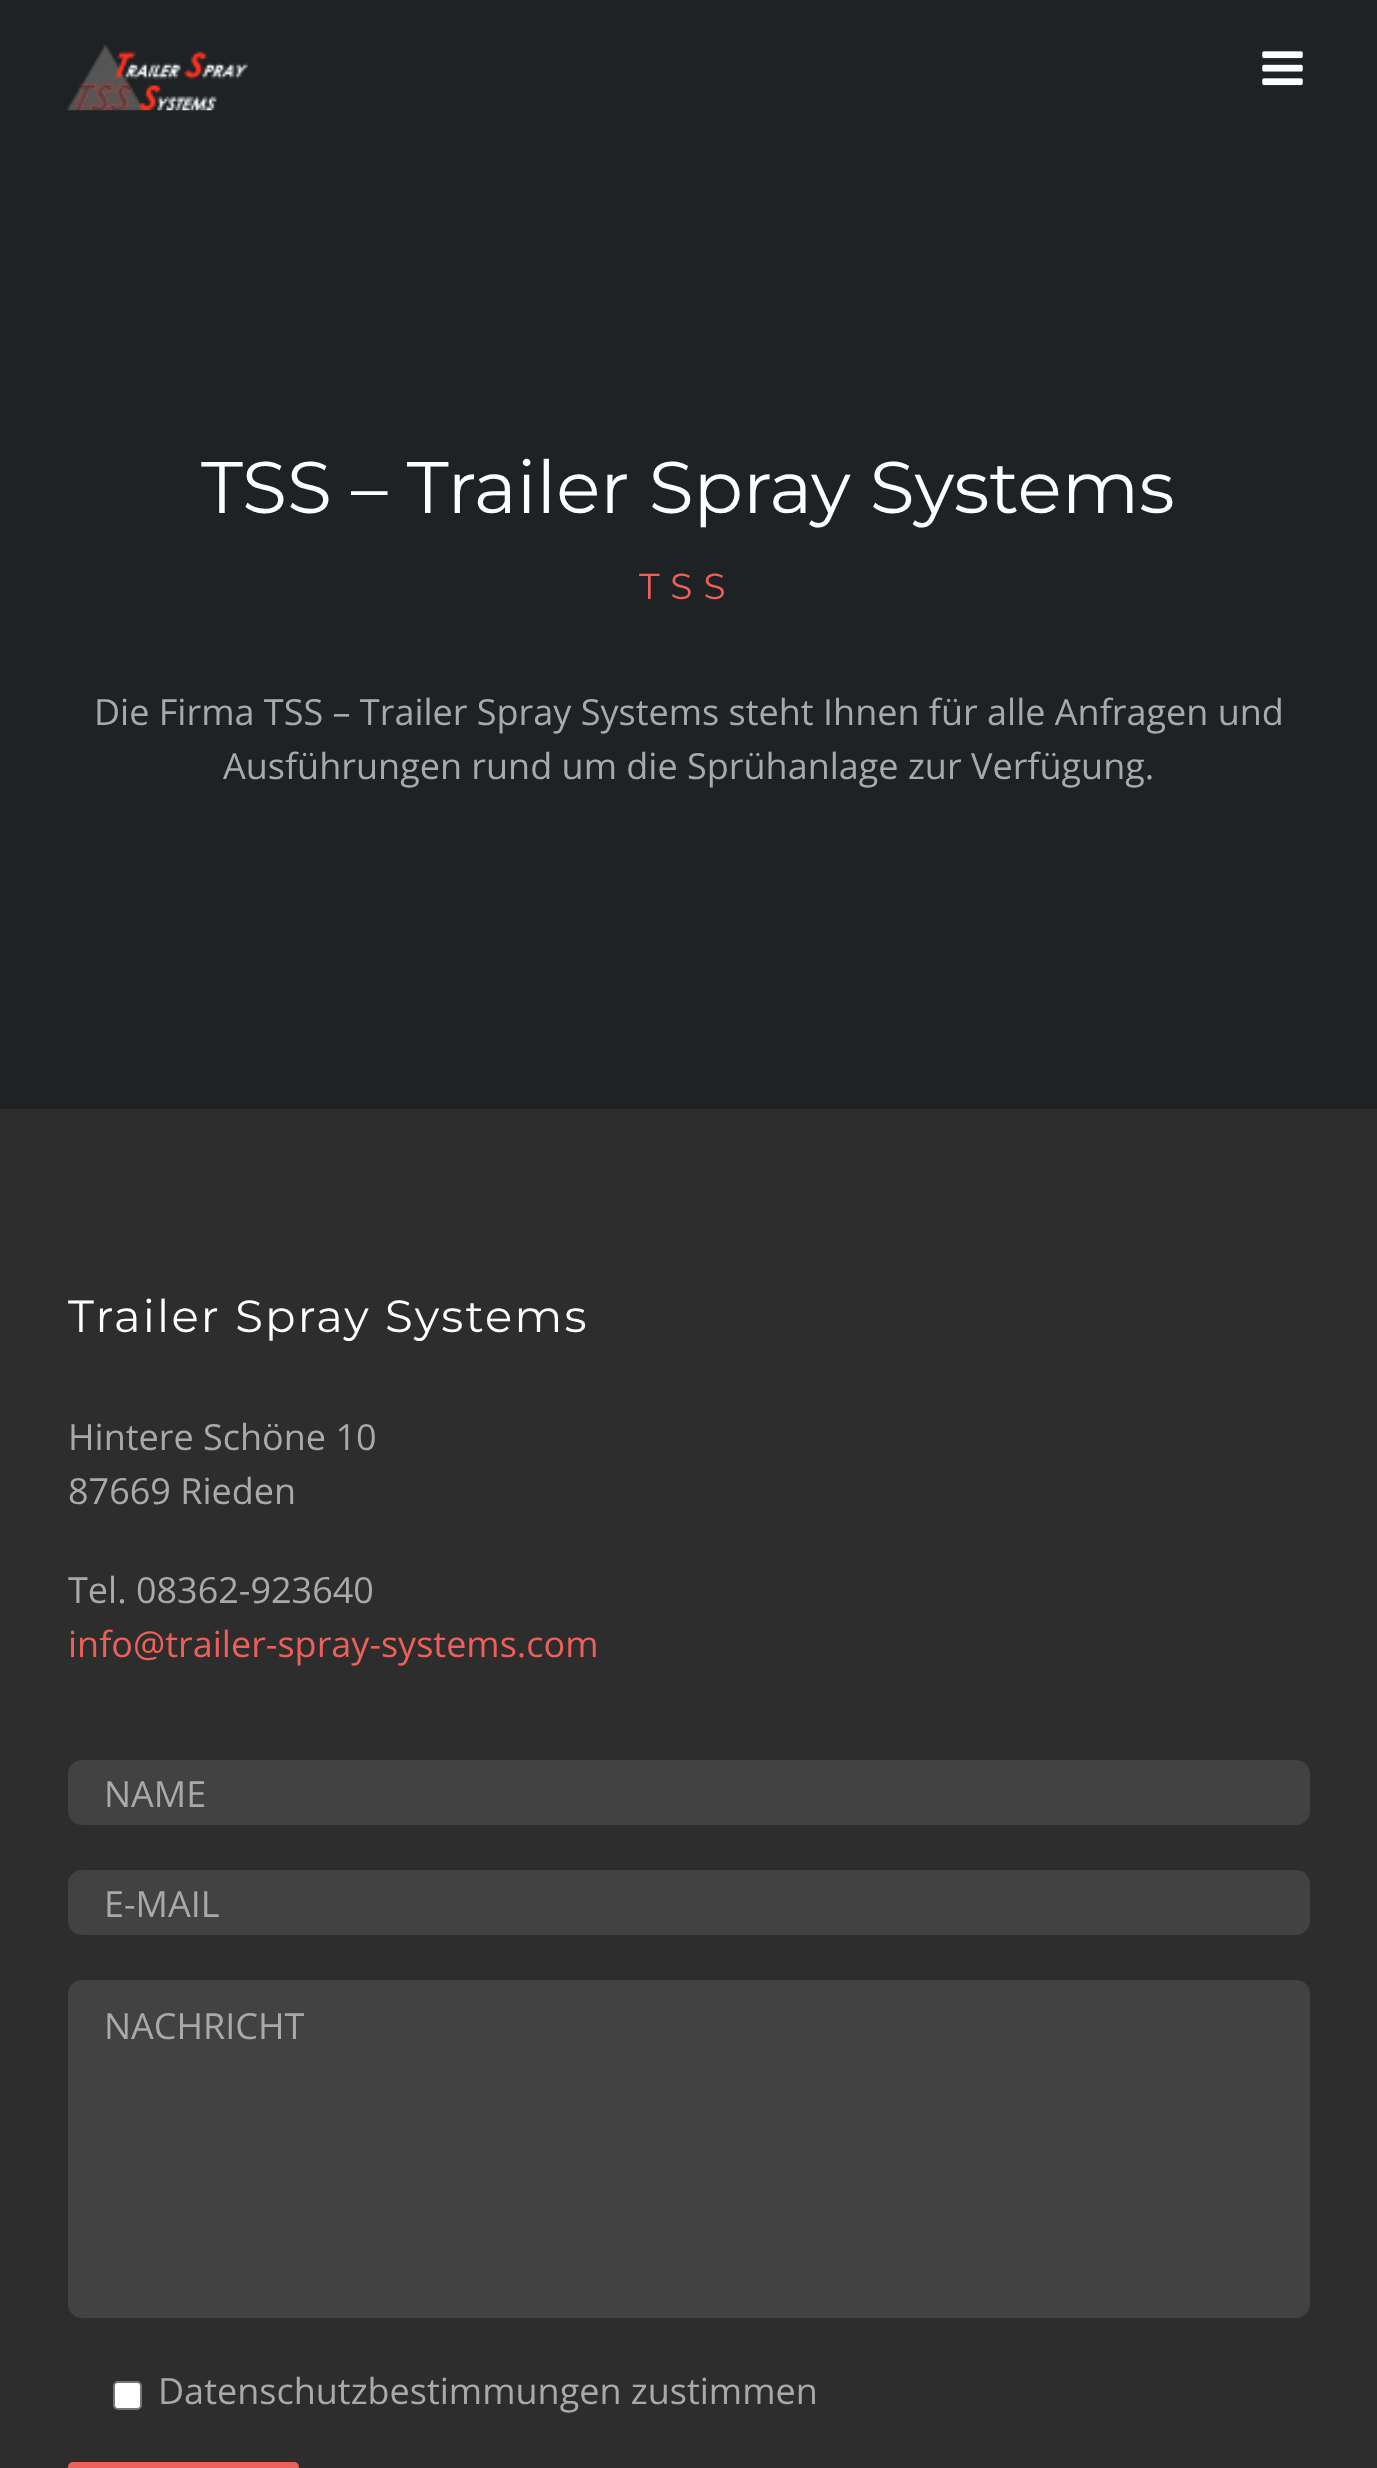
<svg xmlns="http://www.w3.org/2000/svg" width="1377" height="2468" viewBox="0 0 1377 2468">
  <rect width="100%" height="100%" fill="#1f2224"/>
  <image x="67" y="45" width="181" height="66" href="img/1.png"/>
  <image x="1262" y="51" width="41" height="35" href="img/2.png"/>
  <path d="M0 1109h1377v1359H0z" fill="#2d2d2d"/>
  <rect x="69" y="1761" width="1240" height="63" rx="13" fill="#424242" stroke="#3e4346" stroke-width="2"/>
  <rect x="69" y="1871" width="1240" height="63" rx="13" fill="#424242" stroke="#3e4346" stroke-width="2"/>
  <rect x="69" y="1981" width="1240" height="336" rx="13" fill="#424242" stroke="#3e4346" stroke-width="2"/>
  <rect x="114" y="2382" width="27" height="27" rx="4" fill="#fff" stroke="#767676" stroke-width="2"/>
  <rect x="68" y="2462" width="231" height="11" rx="5" fill="#ed6059"/>
  <text x="201" y="513" font-family="Montserrat" font-size="73" fill="#fff">TSS – Trailer Spray Systems</text>
  <text x="639" y="599" font-family="Montserrat" font-size="36" letter-spacing="11" fill="#ed6059">TSS</text>
  <g font-family="Open Sans" font-size="36" fill="#aaa9a9">
    <text x="94" y="725">Die Firma TSS – Trailer Spray Systems steht Ihnen für alle Anfragen und</text>
    <text x="223" y="779">Ausführungen rund um die Sprühanlage zur Verfügung.</text>
  </g>
  <text x="68" y="1332" font-family="Montserrat" font-size="45" letter-spacing="2.25" fill="#fff">Trailer Spray Systems</text>
  <g font-family="Open Sans" font-size="36" fill="#aaa9a9">
    <text x="68" y="1450">Hintere Schöne 10</text>
    <text x="68" y="1504">87669 Rieden</text>
    <text x="68" y="1603">Tel. 08362-923640</text>
  </g>
  <text x="68" y="1657" font-family="Open Sans" font-size="36" fill="#ed6059">info@trailer-spray-systems.com</text>
  <g font-family="Open Sans" font-size="36" fill="#aaa9a9">
    <text x="104" y="1807">NAME</text>
    <text x="104" y="1917">E-MAIL</text>
    <text x="104" y="2039">NACHRICHT</text>
    <text x="158" y="2404">Datenschutzbestimmungen zustimmen</text>
  </g>
</svg>
